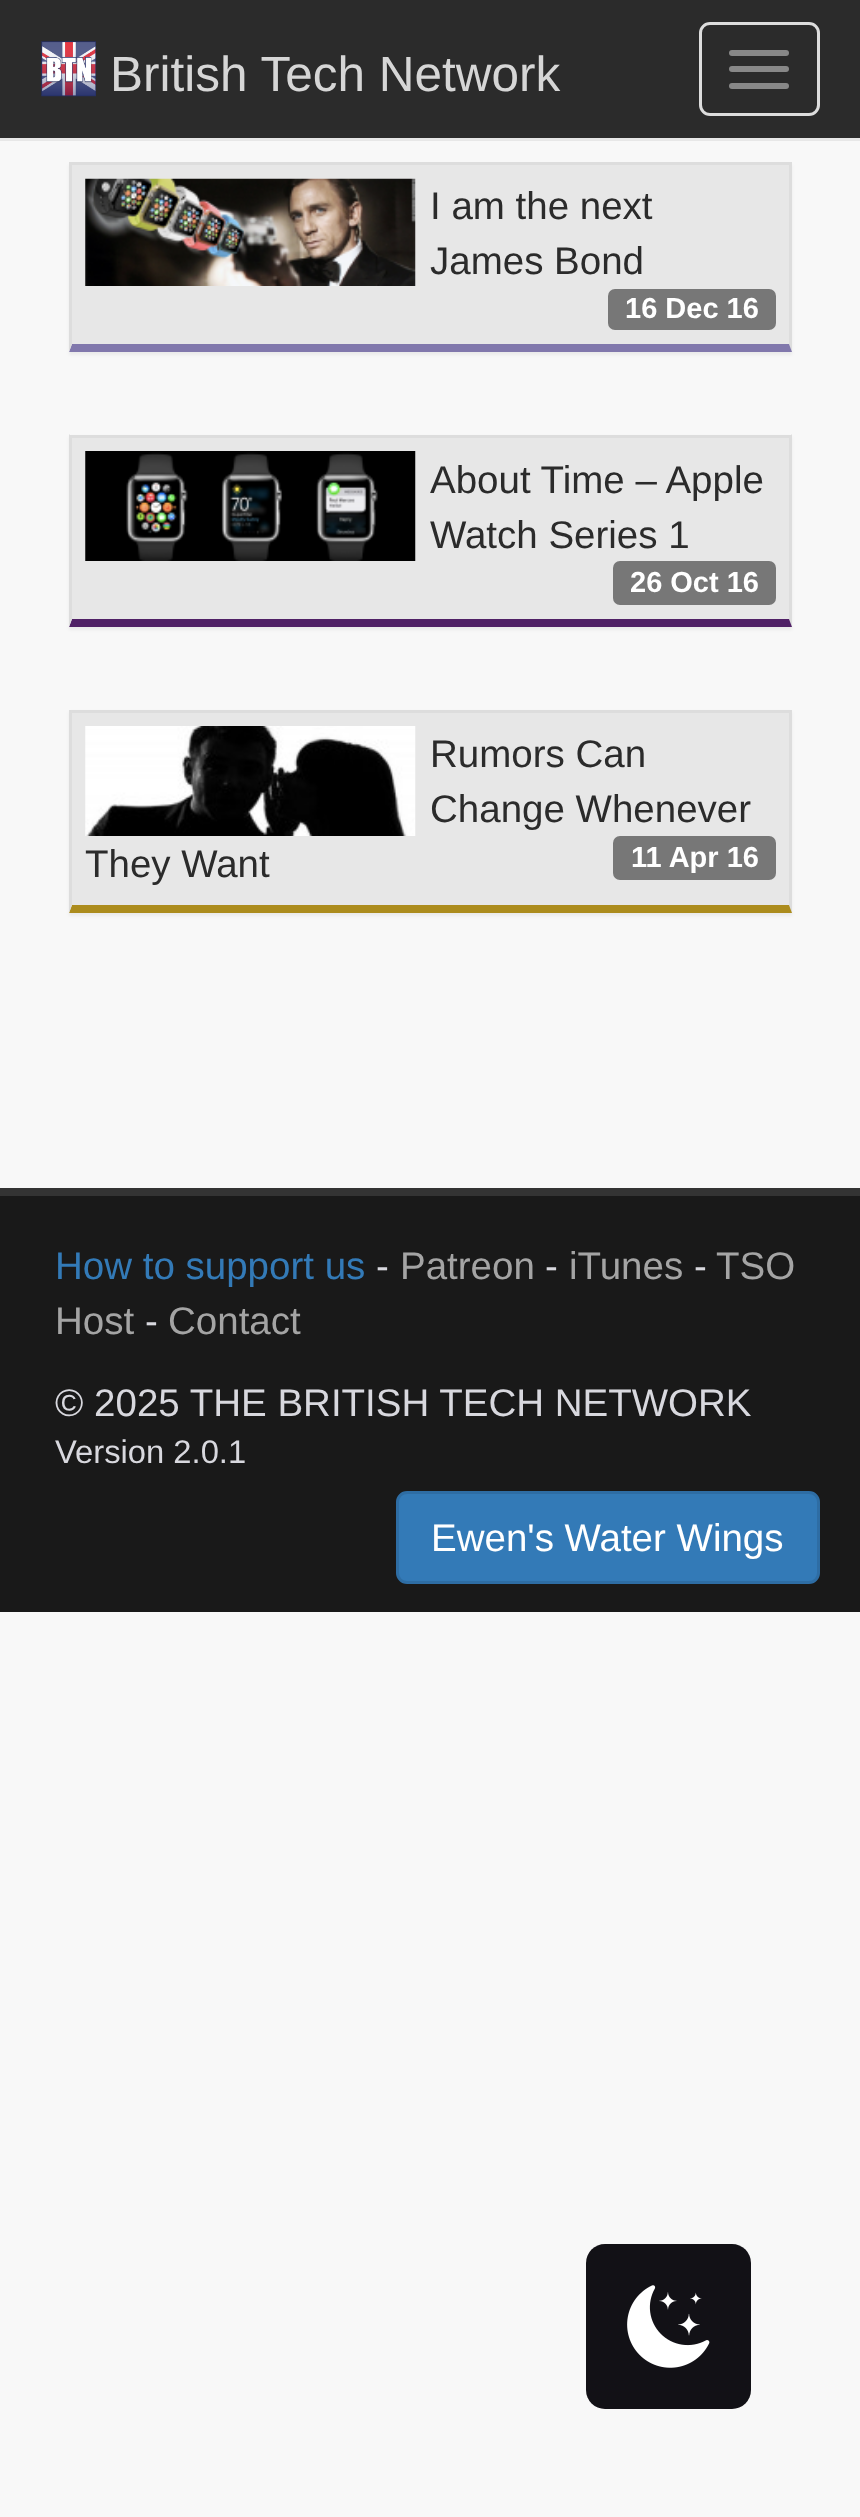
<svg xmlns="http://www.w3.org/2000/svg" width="860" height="2517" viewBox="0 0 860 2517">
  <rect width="100%" height="100%" fill="#f8f8f8"/>
  <path d="M0 0h860v138H0z" fill="#2b2b2b"/>
  <path d="M0 138h860v3H0z" fill="#e7e7e7"/>
  <image x="41" y="41" width="55" height="56" href="img/1.png"/>
  <rect x="700.5" y="23.5" width="118" height="91" rx="9.5" fill="none" stroke="#ddd" stroke-width="3"/>
  <rect x="729" y="50" width="60" height="6" rx="3" fill="#888"/>
  <rect x="729" y="66" width="60" height="6" rx="3" fill="#888"/>
  <rect x="729" y="83" width="60" height="6" rx="3" fill="#888"/>
  <path d="M69 165h723v190H69z" fill="#0000000d" filter="blur(1.5px)"/>
  <path d="M72 165h717v179H72z" fill="#e7e7e7"/>
  <path d="M69 162h723v3H69z" fill="#ddd"/>
  <path d="M792 162V352L789 344V165Z" fill="#ddd"/>
  <path d="M792 352H69L72 344H789Z" fill="#8178ac"/>
  <path d="M69 352V162L72 165V344Z" fill="#ddd"/>
  <image x="85" y="178" width="331" height="108" href="img/2.png"/>
  <rect x="608" y="289" width="168" height="41" rx="7" fill="#777"/>
  <path d="M69 437h723v193H69z" fill="#0000000d" filter="blur(1.5px)"/>
  <path d="M72 438h717v181H72z" fill="#e7e7e7"/>
  <path d="M69 435h723v3H69z" fill="#ddd"/>
  <path d="M792 434V627L789 619V437Z" fill="#ddd"/>
  <path d="M792 627H69L72 619H789Z" fill="#502166"/>
  <path d="M69 627V434L72 437V619Z" fill="#ddd"/>
  <image x="85" y="451" width="331" height="110" href="img/3.png"/>
  <rect x="613" y="561" width="163" height="44" rx="7" fill="#777"/>
  <path d="M69 712h723v204H69z" fill="#0000000d" filter="blur(1.5px)"/>
  <path d="M72 713h717v192H72z" fill="#e7e7e7"/>
  <path d="M69 710h723v3H69z" fill="#ddd"/>
  <path d="M792 710V913L789 905V712Z" fill="#ddd"/>
  <path d="M792 913H69L72 905H789Z" fill="#ac8c1d"/>
  <path d="M69 913V710L72 712V905Z" fill="#ddd"/>
  <image x="85" y="726" width="331" height="110" href="img/4.png"/>
  <rect x="613" y="836" width="163" height="44" rx="7" fill="#777"/>
  <path d="M0 1196h860v416H0z" fill="#191919"/>
  <path d="M0 1188h860v8H0z" fill="#333"/>
  <rect x="397.5" y="1492.5" width="421" height="90" rx="9.5" fill="#337ab7" stroke="#2e6da4" stroke-width="3"/>
  <rect x="586" y="2244" width="165" height="165" rx="19" fill="#121116"/>
  <image x="627" y="2285" width="83" height="83" href="img/5.png"/>
  <text x="110" y="91" font-family="Liberation Sans" font-size="49.5" fill="#d6d6d6">British Tech Network</text>
  <g font-family="Liberation Sans" font-size="38.5" fill="#2b2b2b">
    <text x="430" y="219">I am the next</text>
    <text x="430" y="274">James Bond</text>
  </g>
  <text x="625" y="318" font-family="Liberation Sans" font-size="29" font-weight="bold" fill="#fff">16 Dec 16</text>
  <g font-family="Liberation Sans" font-size="38.5" fill="#2b2b2b">
    <text x="430" y="493">About Time – Apple</text>
    <text x="430" y="548">Watch Series 1</text>
  </g>
  <text x="630" y="592" font-family="Liberation Sans" font-size="29" font-weight="bold" fill="#fff">26 Oct 16</text>
  <g font-family="Liberation Sans" font-size="38.5" fill="#2b2b2b">
    <text x="430" y="767">Rumors Can</text>
    <text x="430" y="822">Change Whenever</text>
    <text x="85" y="877">They Want</text>
  </g>
  <text x="631" y="867" font-family="Liberation Sans" font-size="29" font-weight="bold" fill="#fff">11 Apr 16</text>
  <text x="55" y="1279" font-family="Liberation Sans" font-size="38.5" fill="#337ab7">How to support us</text>
  <text x="376" y="1279" font-family="Liberation Sans" font-size="38.5" fill="#d8d8de">-</text>
  <text x="400" y="1279" font-family="Liberation Sans" font-size="38.5" fill="#a4a4a4">Patreon</text>
  <text x="545" y="1279" font-family="Liberation Sans" font-size="38.5" fill="#d8d8de">-</text>
  <text x="569" y="1279" font-family="Liberation Sans" font-size="38.5" fill="#a4a4a4">iTunes</text>
  <text x="694" y="1279" font-family="Liberation Sans" font-size="38.5" fill="#d8d8de">-</text>
  <g font-family="Liberation Sans" font-size="38.5" fill="#a4a4a4">
    <text x="716" y="1279">TSO</text>
    <text x="55" y="1334">Host</text>
  </g>
  <text x="145" y="1334" font-family="Liberation Sans" font-size="38.5" fill="#d8d8de">-</text>
  <text x="168" y="1334" font-family="Liberation Sans" font-size="38.5" fill="#a4a4a4">Contact</text>
  <text x="55" y="1416" font-family="Liberation Sans" font-size="38.5" fill="#d8d8de">© 2025 THE BRITISH TECH NETWORK</text>
  <text x="55" y="1463" font-family="Liberation Sans" font-size="32.75" fill="#d8d8de">Version 2.0.1</text>
  <text x="431" y="1551" font-family="Liberation Sans" font-size="38.5" fill="#fff">Ewen's Water Wings</text>
</svg>
